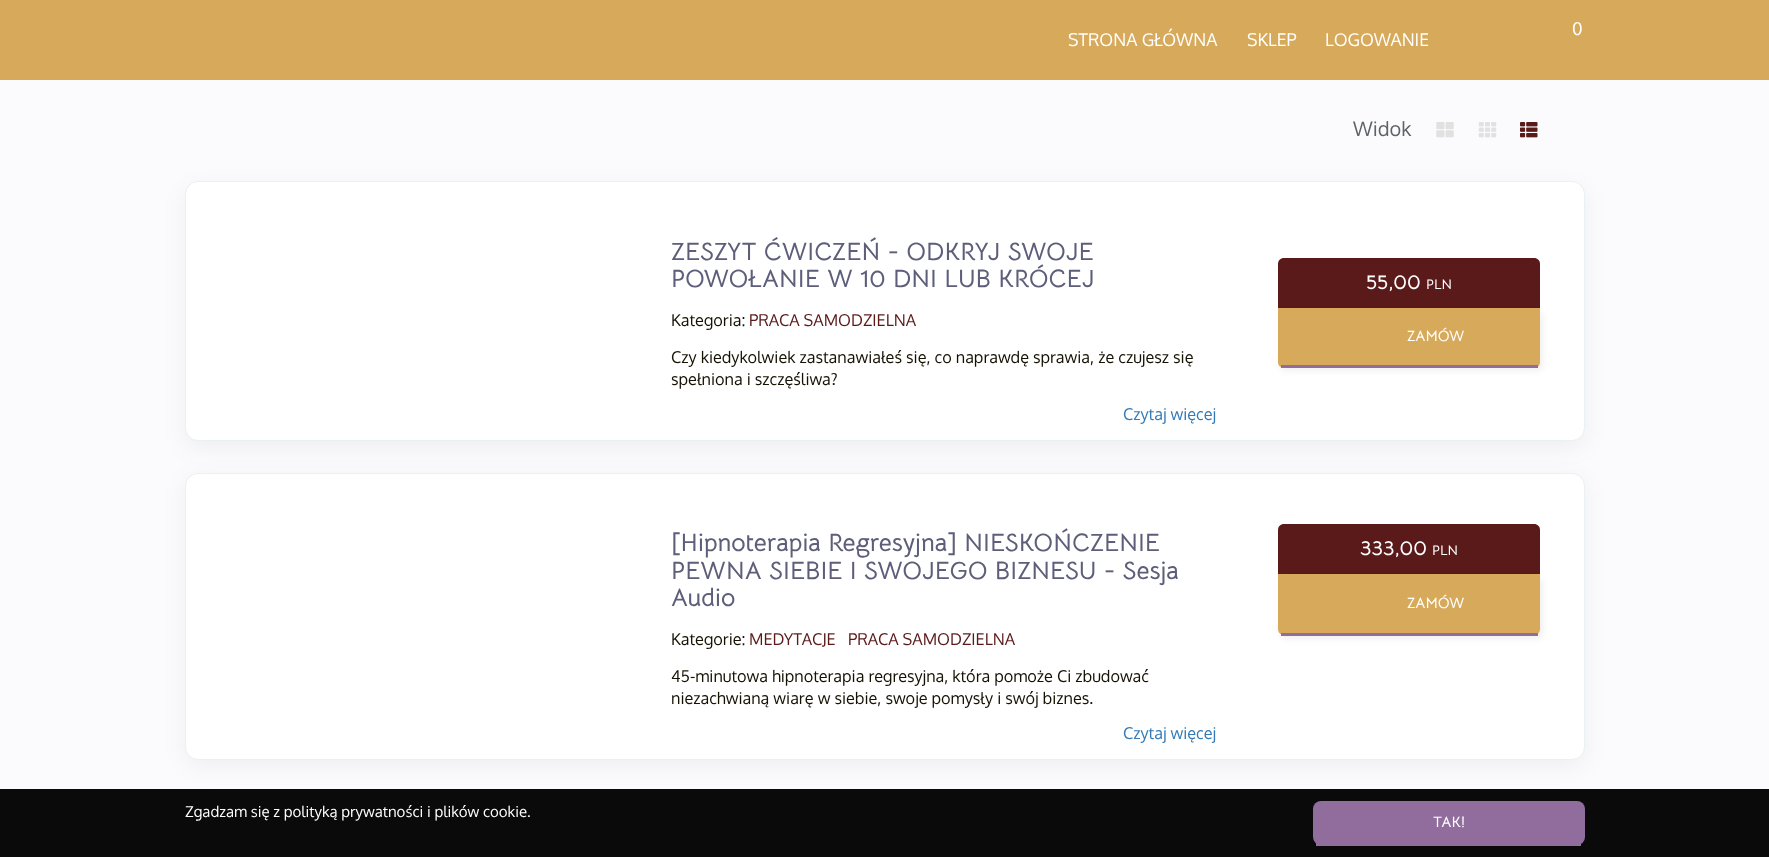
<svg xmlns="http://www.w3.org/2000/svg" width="1769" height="857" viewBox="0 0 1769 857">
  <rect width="100%" height="100%" fill="#fbfbfd"/>
  <path d="M0 0h1769v80H0z" fill="#d7a95a"/>
  <image x="1436" y="122" width="18" height="16" href="img/1.png"/>
  <image x="1478" y="122" width="19" height="16" href="img/2.png"/>
  <image x="1520" y="122" width="18" height="16" href="img/3.png"/>
  <rect x="185" y="188" width="1400" height="260" rx="13" fill="#0000000d" filter="blur(11px)"/>
  <rect x="185.5" y="181.5" width="1399" height="259" rx="12.5" fill="#fff" stroke="#eaf0f3"/>
  <path d="M1284 258H1534C1537.5 258 1540 260.5 1540 264V308H1278V264C1278 260.5 1280.5 258 1284 258Z" fill="#5b1a1a"/>
  <rect x="1280" y="311" width="263" height="60" rx="6" fill="#0000000f" filter="blur(3px)"/>
  <path d="M1278 308H1540V362C1540 365.5 1537.5 368 1534 368H1284C1280.5 368 1278 365.5 1278 362Z" fill="#d7a95a"/>
  <path d="M1281 365h257v3H1281z" fill="#916d9e"/>
  <rect x="185" y="479" width="1400" height="287" rx="13" fill="#0000000d" filter="blur(11px)"/>
  <rect x="185.5" y="473.5" width="1399" height="286" rx="12.5" fill="#fff" stroke="#eaf0f3"/>
  <path d="M1284 524H1534C1537.5 524 1540 526.5 1540 530V574H1278V530C1278 526.5 1280.5 524 1284 524Z" fill="#5b1a1a"/>
  <rect x="1280" y="578" width="263" height="61" rx="6" fill="#0000000f" filter="blur(3px)"/>
  <path d="M1278 574H1540V629C1540 632.5 1537.5 635 1534 635H1284C1280.5 635 1278 632.5 1278 629Z" fill="#d7a95a"/>
  <path d="M1281 633h257v3H1281z" fill="#916d9e"/>
  <path d="M0 789h1769v68H0z" fill="#0a0a0a"/>
  <rect x="1313" y="801" width="272" height="44" rx="8" fill="#916d9e"/>
  <path d="M1316 843h265v3H1316z" fill="#916d9e"/>
  <g font-family="Oxygen" font-size="17.5" fill="#fff">
    <text x="1068" y="46">STRONA GŁÓWNA</text>
    <text x="1247" y="46">SKLEP</text>
    <text x="1325" y="46">LOGOWANIE</text>
    <text x="1572" y="35">0</text>
  </g>
  <text x="1353" y="136" font-family="Oxygen" font-size="20" fill="#5f6368">Widok</text>
  <g font-family="Bellota Text" font-size="25" font-weight="bold" fill="#5d5e79">
    <text x="671" y="260">ZESZYT ĆWICZEŃ - ODKRYJ SWOJE</text>
    <text x="671" y="287">POWOŁANIE W 10 DNI LUB KRÓCEJ</text>
  </g>
  <text x="671" y="326" font-family="Oxygen" font-size="16.25" fill="#151203">Kategoria:</text>
  <text x="749" y="326" font-family="Oxygen" font-size="16.25" fill="#5b1a1a">PRACA SAMODZIELNA</text>
  <g font-family="Oxygen" font-size="16.25" fill="#151203">
    <text x="671" y="363">Czy kiedykolwiek zastanawiałeś się, co naprawdę sprawia, że czujesz się</text>
    <text x="671" y="385">spełniona i szczęśliwa?</text>
  </g>
  <text x="1123" y="420" font-family="Oxygen" font-size="16.25" fill="#337ab7">Czytaj więcej</text>
  <text x="1366" y="289" font-family="Bellota Text" font-size="21" font-weight="bold" fill="#fff">55,00</text>
  <text x="1426" y="289" font-family="Bellota Text" font-size="14" font-weight="bold" fill="#fff">PLN</text>
  <text x="1407" y="341" font-family="Bellota Text" font-size="15" font-weight="bold" fill="#fff">ZAMÓW</text>
  <g font-family="Bellota Text" font-size="25" font-weight="bold" fill="#5d5e79">
    <text x="671" y="551">[Hipnoterapia Regresyjna] NIESKOŃCZENIE</text>
    <text x="671" y="579">PEWNA SIEBIE I SWOJEGO BIZNESU - Sesja</text>
    <text x="671" y="606">Audio</text>
  </g>
  <text x="671" y="645" font-family="Oxygen" font-size="16.25" fill="#151203">Kategorie:</text>
  <g font-family="Oxygen" font-size="16.25" fill="#5b1a1a">
    <text x="749" y="645">MEDYTACJE</text>
    <text x="848" y="645">PRACA SAMODZIELNA</text>
  </g>
  <g font-family="Oxygen" font-size="16.25" fill="#151203">
    <text x="671" y="682">45-minutowa hipnoterapia regresyjna, która pomoże Ci zbudować</text>
    <text x="671" y="704">niezachwianą wiarę w siebie, swoje pomysły i swój biznes.</text>
  </g>
  <text x="1123" y="739" font-family="Oxygen" font-size="16.25" fill="#337ab7">Czytaj więcej</text>
  <text x="1360" y="555" font-family="Bellota Text" font-size="21" font-weight="bold" fill="#fff">333,00</text>
  <text x="1432" y="555" font-family="Bellota Text" font-size="14" font-weight="bold" fill="#fff">PLN</text>
  <text x="1407" y="608" font-family="Bellota Text" font-size="15" font-weight="bold" fill="#fff">ZAMÓW</text>
  <text x="185" y="817" font-family="Oxygen" font-size="15" fill="#fff">Zgadzam się z polityką prywatności i plików cookie.</text>
  <text x="1433" y="827" font-family="Bellota Text" font-size="15" font-weight="bold" fill="#fff">TAK!</text>
</svg>
